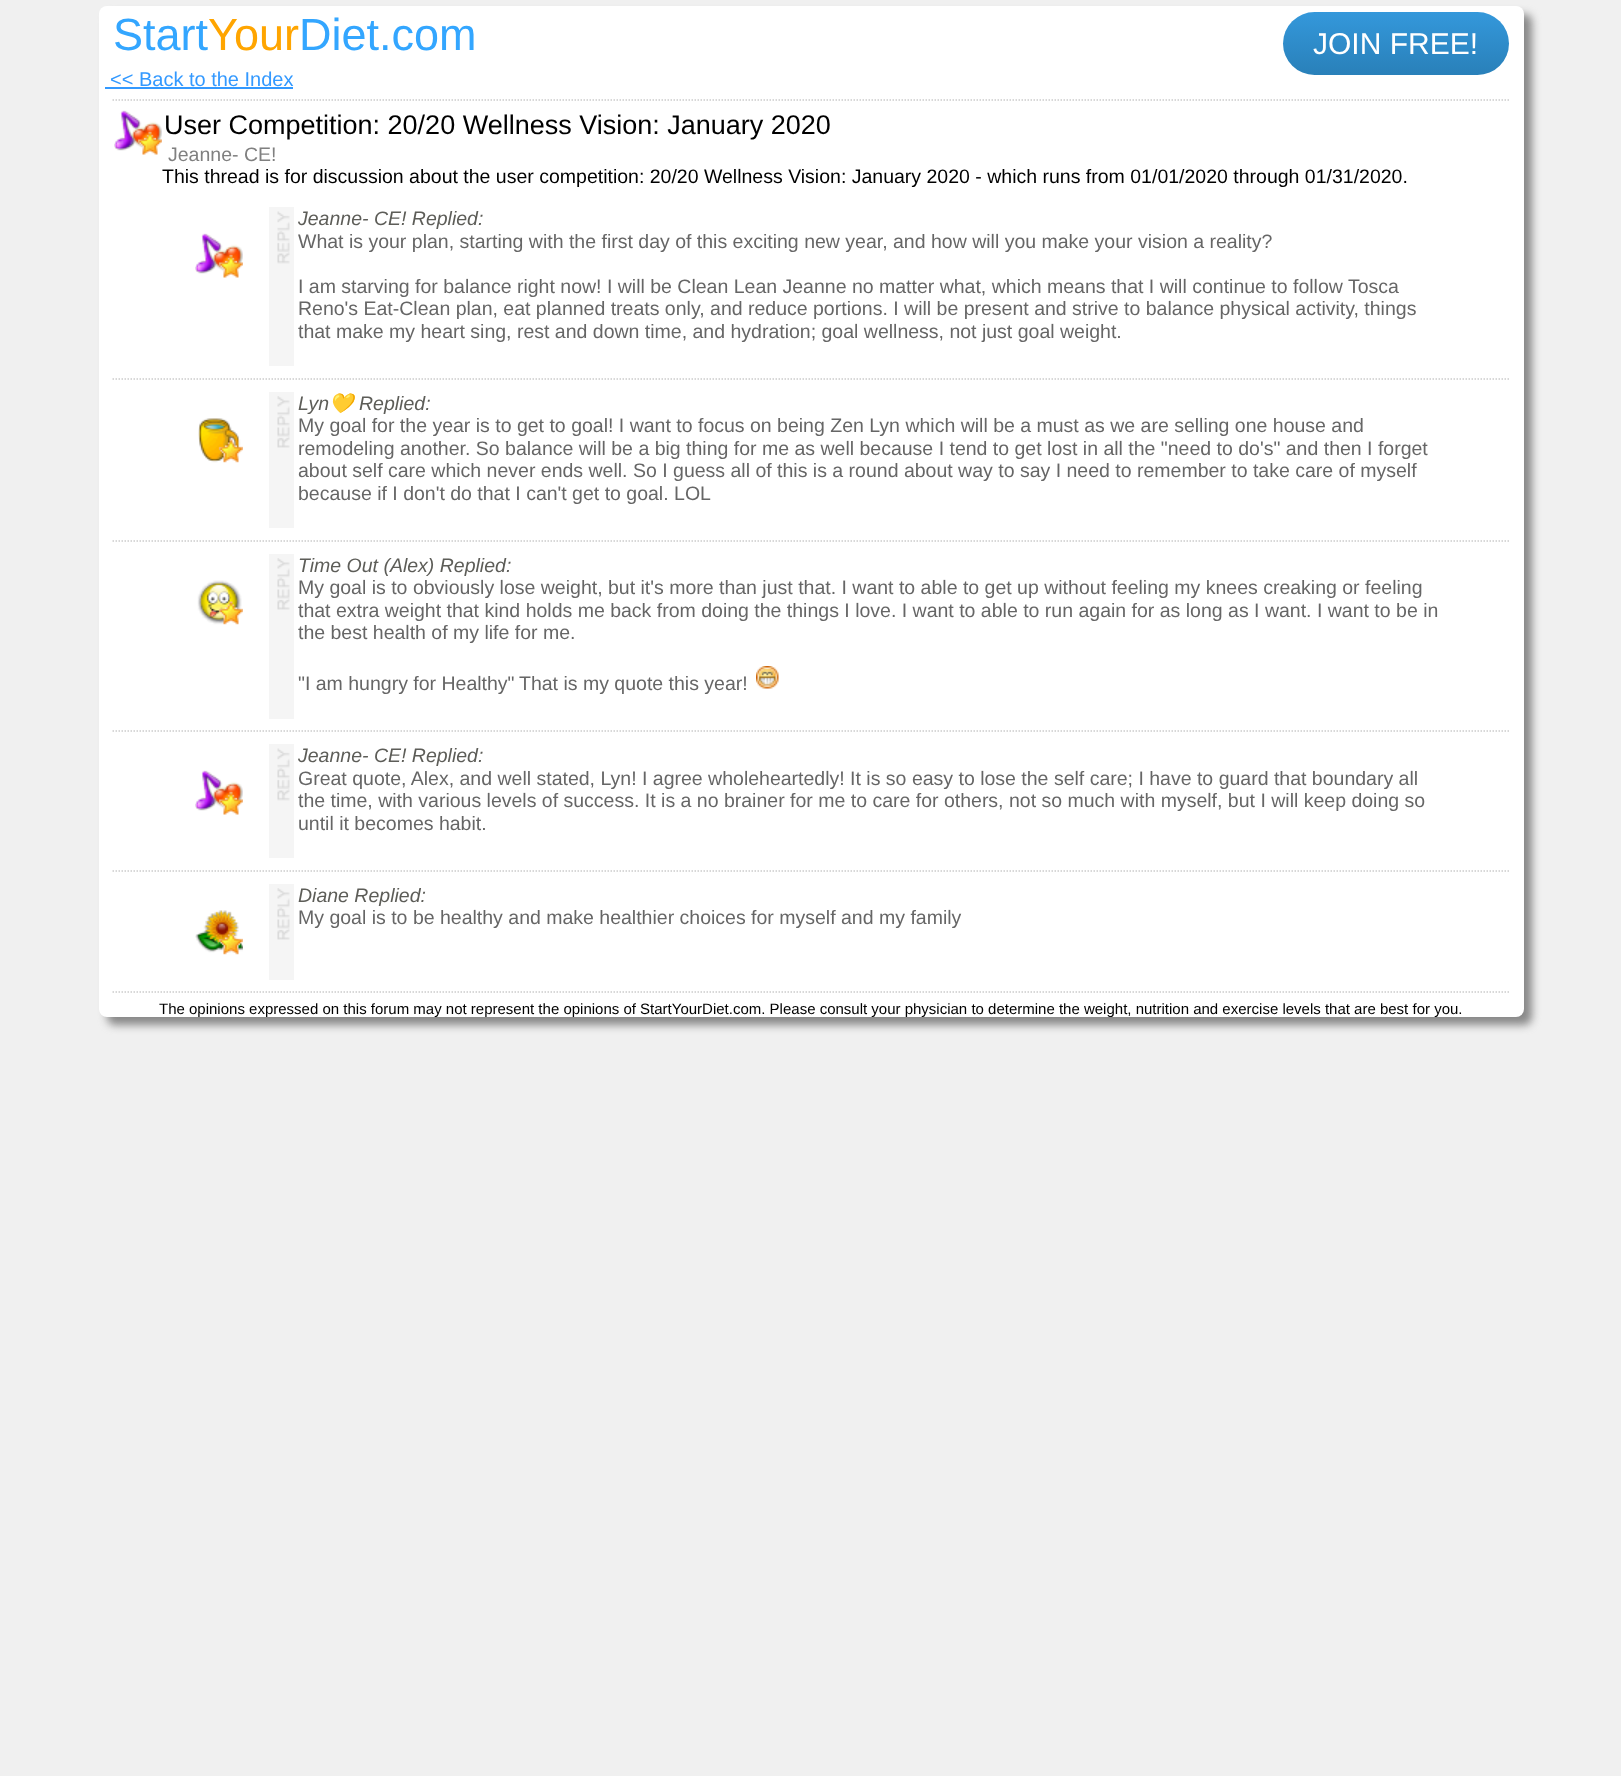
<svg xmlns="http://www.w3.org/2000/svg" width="1621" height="1776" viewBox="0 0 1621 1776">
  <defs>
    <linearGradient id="g1" gradientUnits="userSpaceOnUse" x1="1396" y1="12" x2="1396" y2="75"><stop offset="0" stop-color="#3498db"/><stop offset="1" stop-color="#2980b9"/></linearGradient>
  </defs>
  <rect width="100%" height="100%" fill="#f0f0f0"/>
  <rect x="107" y="14" width="1425" height="1011" rx="8" fill="#888" filter="blur(4px)"/>
  <rect x="99" y="6" width="1425" height="1011" rx="8" fill="#fff"/>
  <rect x="1283" y="12" width="226" height="63" rx="31.5" fill="url(#g1)"/>
  <path d="M105 87h188v2H105z" fill="#39f"/>
  <path d="M112.5 100H1509" fill="none" stroke="#ccc" stroke-width="1.5" stroke-dasharray="1.5 1.5"/>
  <image x="114" y="110" width="48" height="45" href="img/1.png"/>
  <image x="195" y="233" width="48" height="45" href="img/1.png"/>
  <path d="M269 207h25v159H269z" fill="#f5f5f5"/>
  <image x="277" y="211" width="13" height="53" href="img/2.png"/>
  <path d="M112.5 379H1509" fill="none" stroke="#ccc" stroke-width="1.5" stroke-dasharray="1.5 1.5"/>
  <image x="198" y="418" width="45" height="45" href="img/3.png"/>
  <path d="M269 392h25v136H269z" fill="#f5f5f5"/>
  <image x="277" y="396" width="13" height="52" href="img/4.png"/>
  <path d="M112.5 541H1509" fill="none" stroke="#ccc" stroke-width="1.5" stroke-dasharray="1.5 1.5"/>
  <image x="197" y="580" width="46" height="45" href="img/5.png"/>
  <path d="M269 554h25v165H269z" fill="#f5f5f5"/>
  <image x="277" y="558" width="13" height="52" href="img/4.png"/>
  <image x="756" y="666" width="23" height="23" href="img/6.png"/>
  <path d="M112.5 731H1509" fill="none" stroke="#ccc" stroke-width="1.5" stroke-dasharray="1.5 1.5"/>
  <image x="195" y="770" width="48" height="45" href="img/1.png"/>
  <path d="M269 744h25v114H269z" fill="#f5f5f5"/>
  <image x="277" y="748" width="13" height="53" href="img/2.png"/>
  <path d="M112.5 871H1509" fill="none" stroke="#ccc" stroke-width="1.5" stroke-dasharray="1.5 1.5"/>
  <image x="195" y="910" width="48" height="45" href="img/7.png"/>
  <path d="M269 884h25v96H269z" fill="#f5f5f5"/>
  <image x="277" y="888" width="13" height="52" href="img/4.png"/>
  <path d="M112.5 992H1509" fill="none" stroke="#ccc" stroke-width="1.5" stroke-dasharray="1.5 1.5"/>
  <text x="113" y="50" font-family="Liberation Sans" font-size="45" fill="#33a6ff">Start</text>
  <text x="208" y="50" font-family="Liberation Sans" font-size="45" fill="#ffa500">Your</text>
  <text x="299" y="50" font-family="Liberation Sans" font-size="45" fill="#33a6ff">Diet.com</text>
  <text x="1313" y="54" font-family="Liberation Sans" font-size="30" fill="#fff">JOIN FREE!</text>
  <text x="110" y="86" font-family="Liberation Sans" font-size="20" fill="#39f">&lt;&lt; Back to the Index</text>
  <text x="164" y="134" font-family="Liberation Sans" font-size="27" fill="#000">User Competition: 20/20 Wellness Vision: January 2020</text>
  <text x="168" y="161" font-family="Liberation Sans" font-size="19.5" fill="#808080">Jeanne- CE!</text>
  <text x="162" y="183" font-family="Liberation Sans" font-size="19.5" fill="#000">This thread is for discussion about the user competition: 20/20 Wellness Vision: January 2020 - which runs from 01/01/2020 through 01/31/2020.</text>
  <text x="298" y="225" font-family="Liberation Sans" font-size="19.5" font-style="italic" fill="#5d5d58">Jeanne- CE! Replied:</text>
  <g font-family="Liberation Sans" font-size="19.5" fill="#666">
    <text x="298" y="248">What is your plan, starting with the first day of this exciting new year, and how will you make your vision a reality?</text>
    <text x="298" y="293">I am starving for balance right now! I will be Clean Lean Jeanne no matter what, which means that I will continue to follow Tosca</text>
    <text x="298" y="315">Reno's Eat-Clean plan, eat planned treats only, and reduce portions. I will be present and strive to balance physical activity, things</text>
    <text x="298" y="338">that make my heart sing, rest and down time, and hydration; goal wellness, not just goal weight.</text>
  </g>
  <text x="298" y="410" font-family="Liberation Sans" font-size="19.5" font-style="italic" fill="#5d5d58">Lyn</text>
  <text x="329" y="410" font-family="Noto Color Emoji" font-size="19.5" font-style="italic" fill="#5d5d58">💛</text>
  <text x="359" y="410" font-family="Liberation Sans" font-size="19.5" font-style="italic" fill="#5d5d58">Replied:</text>
  <g font-family="Liberation Sans" font-size="19.5" fill="#666">
    <text x="298" y="432">My goal for the year is to get to goal! I want to focus on being Zen Lyn which will be a must as we are selling one house and</text>
    <text x="298" y="455">remodeling another. So balance will be a big thing for me as well because I tend to get lost in all the "need to do's" and then I forget</text>
    <text x="298" y="477">about self care which never ends well. So I guess all of this is a round about way to say I need to remember to take care of myself</text>
    <text x="298" y="500">because if I don't do that I can't get to goal. LOL</text>
  </g>
  <text x="298" y="572" font-family="Liberation Sans" font-size="19.5" font-style="italic" fill="#5d5d58">Time Out (Alex) Replied:</text>
  <g font-family="Liberation Sans" font-size="19.5" fill="#666">
    <text x="298" y="594">My goal is to obviously lose weight, but it's more than just that. I want to able to get up without feeling my knees creaking or feeling</text>
    <text x="298" y="617">that extra weight that kind holds me back from doing the things I love. I want to able to run again for as long as I want. I want to be in</text>
    <text x="298" y="639">the best health of my life for me.</text>
    <text x="298" y="690">"I am hungry for Healthy"</text>
    <text x="519" y="690">That is my quote this year!</text>
  </g>
  <text x="298" y="762" font-family="Liberation Sans" font-size="19.5" font-style="italic" fill="#5d5d58">Jeanne- CE! Replied:</text>
  <g font-family="Liberation Sans" font-size="19.5" fill="#666">
    <text x="298" y="785">Great quote, Alex, and well stated, Lyn! I agree wholeheartedly! It is so easy to lose the self care; I have to guard that boundary all</text>
    <text x="298" y="807">the time, with various levels of success. It is a no brainer for me to care for others, not so much with myself, but I will keep doing so</text>
    <text x="298" y="830">until it becomes habit.</text>
  </g>
  <text x="298" y="902" font-family="Liberation Sans" font-size="19.5" font-style="italic" fill="#5d5d58">Diane Replied:</text>
  <text x="298" y="924" font-family="Liberation Sans" font-size="19.5" fill="#666">My goal is to be healthy and make healthier choices for myself and my family</text>
  <text x="159" y="1014" font-family="Liberation Sans" font-size="15" fill="#000">The opinions expressed on this forum may not represent the opinions of StartYourDiet.com. Please consult your physician to determine the weight, nutrition and exercise levels that are best for you.</text>
</svg>
